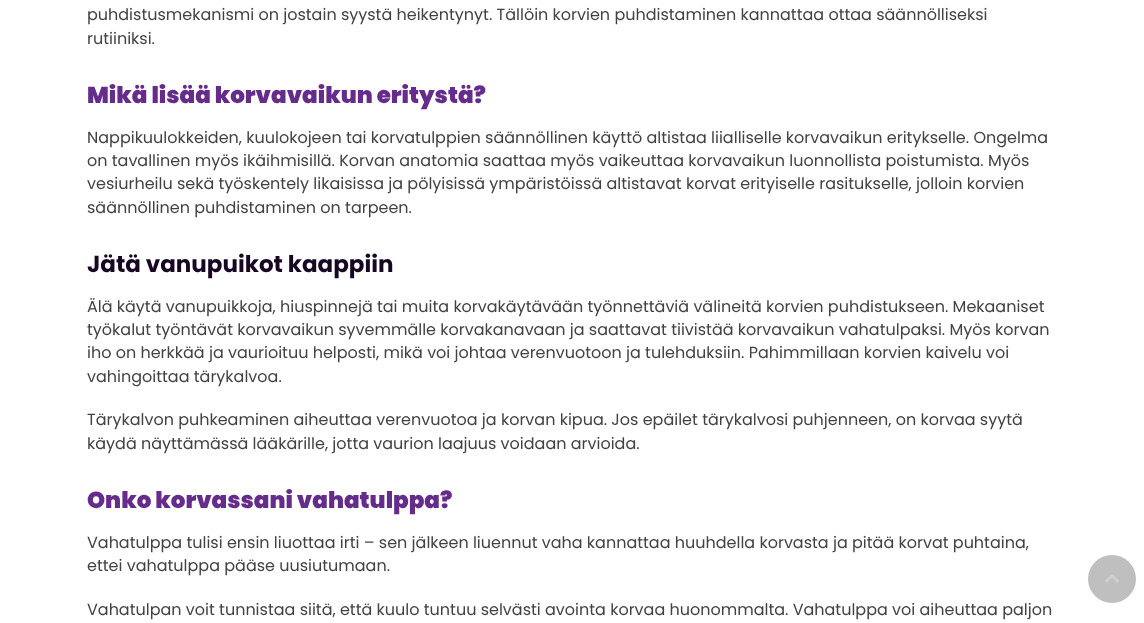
<svg xmlns="http://www.w3.org/2000/svg" width="1144" height="623" viewBox="0 0 1144 623">
  <rect width="100%" height="100%" fill="#fff"/>
  <circle cx="1112" cy="579" r="24" fill="#bfbfbf"/>
  <image x="1105" y="574" width="14" height="9" href="img/1.png"/>
  <g font-family="Poppins" font-size="16" fill="#424242">
    <text x="87" y="20">puhdistusmekanismi on jostain syystä heikentynyt. Tällöin korvien puhdistaminen kannattaa ottaa säännölliseksi</text>
    <text x="87" y="44">rutiiniksi.</text>
  </g>
  <text x="87" y="103" font-family="Poppins" font-size="23" font-weight="900" fill="#652c8b">Mikä lisää korvavaikun eritystä?</text>
  <g font-family="Poppins" font-size="16" fill="#424242">
    <text x="87" y="143">Nappikuulokkeiden, kuulokojeen tai korvatulppien säännöllinen käyttö altistaa liialliselle korvavaikun eritykselle. Ongelma</text>
    <text x="87" y="166">on tavallinen myös ikäihmisillä. Korvan anatomia saattaa myös vaikeuttaa korvavaikun luonnollista poistumista. Myös</text>
    <text x="87" y="189">vesiurheilu sekä työskentely likaisissa ja pölyisissä ympäristöissä altistavat korvat erityiselle rasitukselle, jolloin korvien</text>
    <text x="87" y="213">säännöllinen puhdistaminen on tarpeen.</text>
  </g>
  <text x="87" y="272" font-family="Poppins" font-size="23" font-weight="bold" fill="#170722">Jätä vanupuikot kaappiin</text>
  <g font-family="Poppins" font-size="16" fill="#424242">
    <text x="87" y="312">Älä käytä vanupuikkoja, hiuspinnejä tai muita korvakäytävään työnnettäviä välineitä korvien puhdistukseen. Mekaaniset</text>
    <text x="87" y="335">työkalut työntävät korvavaikun syvemmälle korvakanavaan ja saattavat tiivistää korvavaikun vahatulpaksi. Myös korvan</text>
    <text x="87" y="358">iho on herkkää ja vaurioituu helposti, mikä voi johtaa verenvuotoon ja tulehduksiin. Pahimmillaan korvien kaivelu voi</text>
    <text x="87" y="382">vahingoittaa tärykalvoa.</text>
    <text x="87" y="425">Tärykalvon puhkeaminen aiheuttaa verenvuotoa ja korvan kipua. Jos epäilet tärykalvosi puhjenneen, on korvaa syytä</text>
    <text x="87" y="449">käydä näyttämässä lääkärille, jotta vaurion laajuus voidaan arvioida.</text>
  </g>
  <text x="87" y="508" font-family="Poppins" font-size="23" font-weight="900" fill="#652c8b">Onko korvassani vahatulppa?</text>
  <g font-family="Poppins" font-size="16" fill="#424242">
    <text x="87" y="548">Vahatulppa tulisi ensin liuottaa irti – sen jälkeen liuennut vaha kannattaa huuhdella korvasta ja pitää korvat puhtaina,</text>
    <text x="87" y="571">ettei vahatulppa pääse uusiutumaan.</text>
    <text x="87" y="615">Vahatulpan voit tunnistaa siitä, että kuulo tuntuu selvästi avointa korvaa huonommalta. Vahatulppa voi aiheuttaa paljon</text>
  </g>
</svg>
